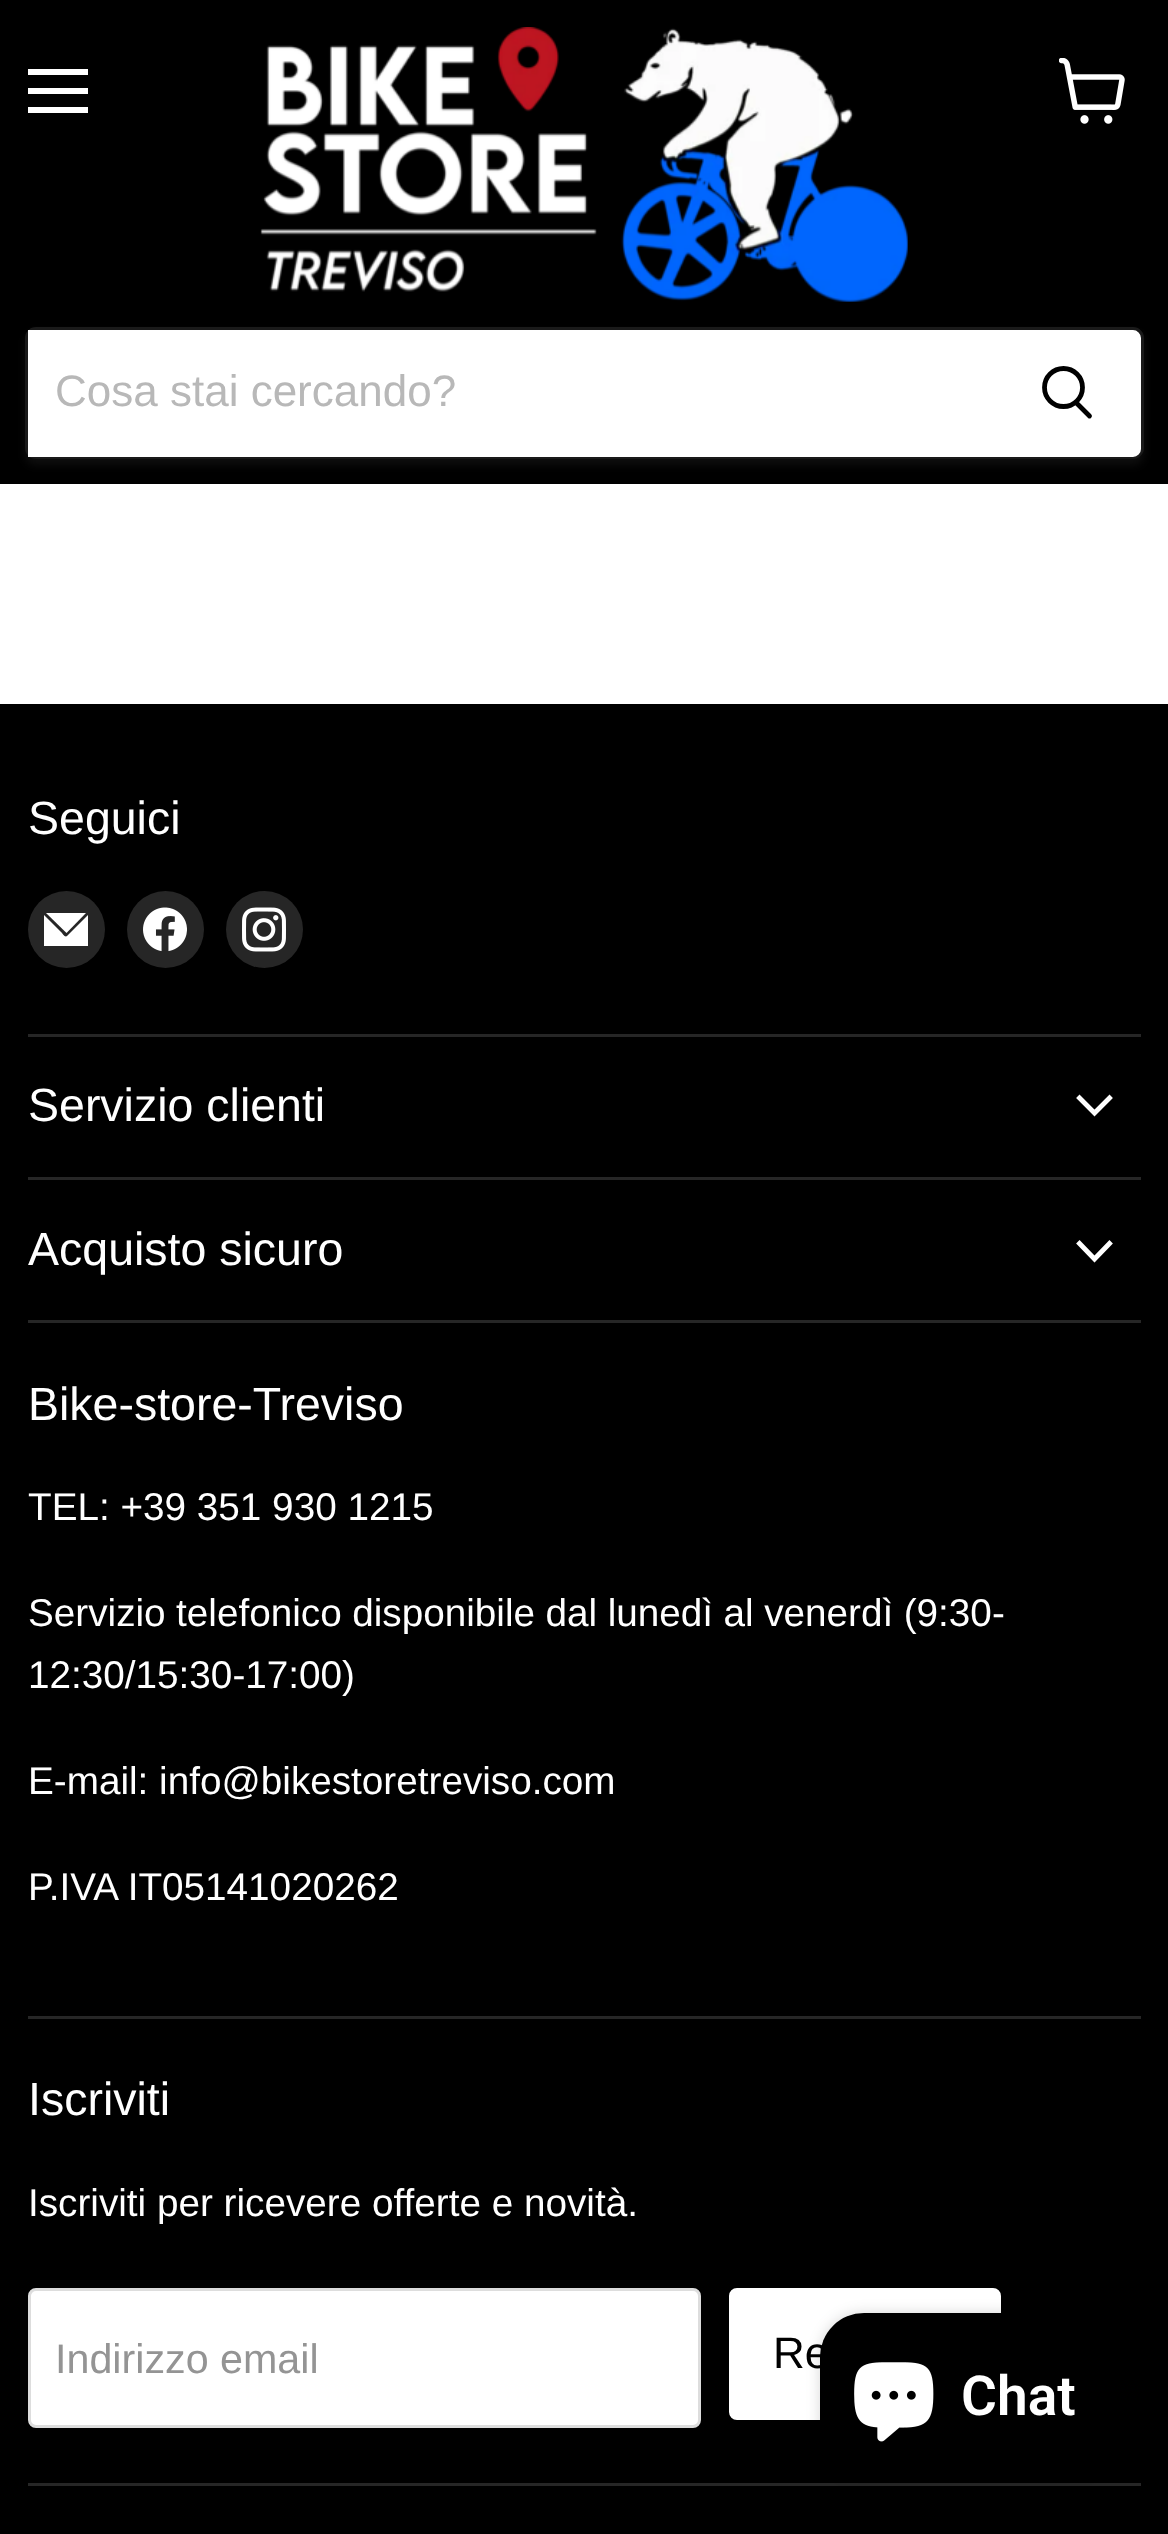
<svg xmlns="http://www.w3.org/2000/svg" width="1168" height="2534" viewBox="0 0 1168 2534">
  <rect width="100%" height="100%" fill="#fff"/>
  <path d="M0 0h1168v484H0z" fill="#000"/>
  <path d="M28 69h60v6H28z" fill="#fff"/>
  <path d="M28 88h60v6H28z" fill="#fff"/>
  <path d="M28 107h60v6H28z" fill="#fff"/>
  <image x="1059" y="58" width="66" height="66" href="img/1.png"/>
  <image x="260" y="27" width="648" height="275" href="img/2.png"/>
  <rect x="25" y="333" width="1119" height="132" rx="11" fill="#8080801c" filter="blur(4px)"/>
  <rect x="26.5" y="328.5" width="1116" height="129" rx="9.5" fill="none" stroke="#1a1a1a" stroke-width="3"/>
  <path d="M28 330h965v127H28z" fill="#fff"/>
  <path d="M994.5 331.5H1133C1136.5 331.5 1139.5 334.5 1139.5 338V449C1139.5 452.5 1136.5 455.5 1133 455.5H994.5Z" fill="#fff" stroke="#fff" stroke-width="3"/>
  <path d="M1089.5 416L1076.5 403" fill="none" stroke="#000" stroke-width="4.8" stroke-linecap="round"/>
  <circle cx="1063.5" cy="387.5" r="19" fill="none" stroke="#000" stroke-width="4.8"/>
  <path d="M0 704h1168v1830H0z" fill="#000"/>
  <path d="M28 1034h1113v3H28z" fill="#262626"/>
  <circle cx="66.5" cy="929.5" r="38.5" fill="#262626"/>
  <path d="M67 936C65 938 62 933 62 933L44 915V946H88V915Z" fill="#fff"/>
  <path d="M86 913H46L66.5 933Z" fill="#fff"/>
  <circle cx="165.5" cy="929.5" r="38.5" fill="#262626"/>
  <image x="143" y="907" width="44" height="45" href="img/3.png"/>
  <circle cx="264.5" cy="929.5" r="38.5" fill="#262626"/>
  <image x="242" y="907" width="44" height="45" href="img/4.png"/>
  <path d="M28 1177h1113v3H28z" fill="#262626"/>
  <path d="M1094.5 1113L1109.5 1098M1094.5 1113L1079.5 1098" fill="none" stroke="#fff" stroke-width="4.8" stroke-linecap="square"/>
  <path d="M28 1320h1113v3H28z" fill="#262626"/>
  <path d="M1094.5 1259L1109.5 1243.5M1094.5 1259L1079.5 1243.5" fill="none" stroke="#fff" stroke-width="4.8" stroke-linecap="square"/>
  <path d="M28 2016h1113v3H28z" fill="#262626"/>
  <path d="M28 2483h1113v3H28z" fill="#262626"/>
  <rect x="29.5" y="2289.5" width="670" height="137" rx="6.5" fill="#fff" stroke="#ddd" stroke-width="3"/>
  <rect x="730.5" y="2289.5" width="269" height="129" rx="6.5" fill="#fff" stroke="#fff" stroke-width="3"/>
  <rect x="820" y="2313" width="288" height="165" rx="44" fill="#00000026" filter="blur(7px)"/>
  <rect x="820" y="2313" width="288" height="165" rx="44" fill="#000"/>
  <image x="854" y="2362" width="80" height="80" href="img/5.png"/>
  <text x="55" y="406" font-family="Liberation Sans" font-size="44" fill="#b8b8b8">Cosa stai cercando?</text>
  <g font-family="Liberation Sans" font-size="46.5" fill="#fff">
    <text x="28" y="834">Seguici</text>
    <text x="28" y="1121">Servizio clienti</text>
    <text x="28" y="1265">Acquisto sicuro</text>
    <text x="28" y="1420">Bike-store-Treviso</text>
  </g>
  <g font-family="Liberation Sans" font-size="38.7" fill="#fff">
    <text x="28" y="1520">TEL: +39 351 930 1215</text>
    <text x="28" y="1626" word-spacing="-0.25">Servizio telefonico disponibile dal lunedì al venerdì (9:30-</text>
    <text x="28" y="1688">12:30/15:30-17:00)</text>
    <text x="28" y="1794">E-mail: info@bikestoretreviso.com</text>
    <text x="28" y="1900">P.IVA IT05141020262</text>
  </g>
  <text x="28" y="2115" font-family="Liberation Sans" font-size="46.5" fill="#fff">Iscriviti</text>
  <text x="28" y="2216" font-family="Liberation Sans" font-size="38.7" fill="#fff">Iscriviti per ricevere offerte e novità.</text>
  <text x="55" y="2373" font-family="Liberation Sans" font-size="41.25" fill="#949494">Indirizzo email</text>
  <text x="773" y="2368" font-family="Liberation Sans" font-size="44" fill="#000">Re</text>
  <text x="961" y="2415" font-family="Roboto" font-size="55" font-weight="600" fill="#fff">Chat</text>
</svg>
